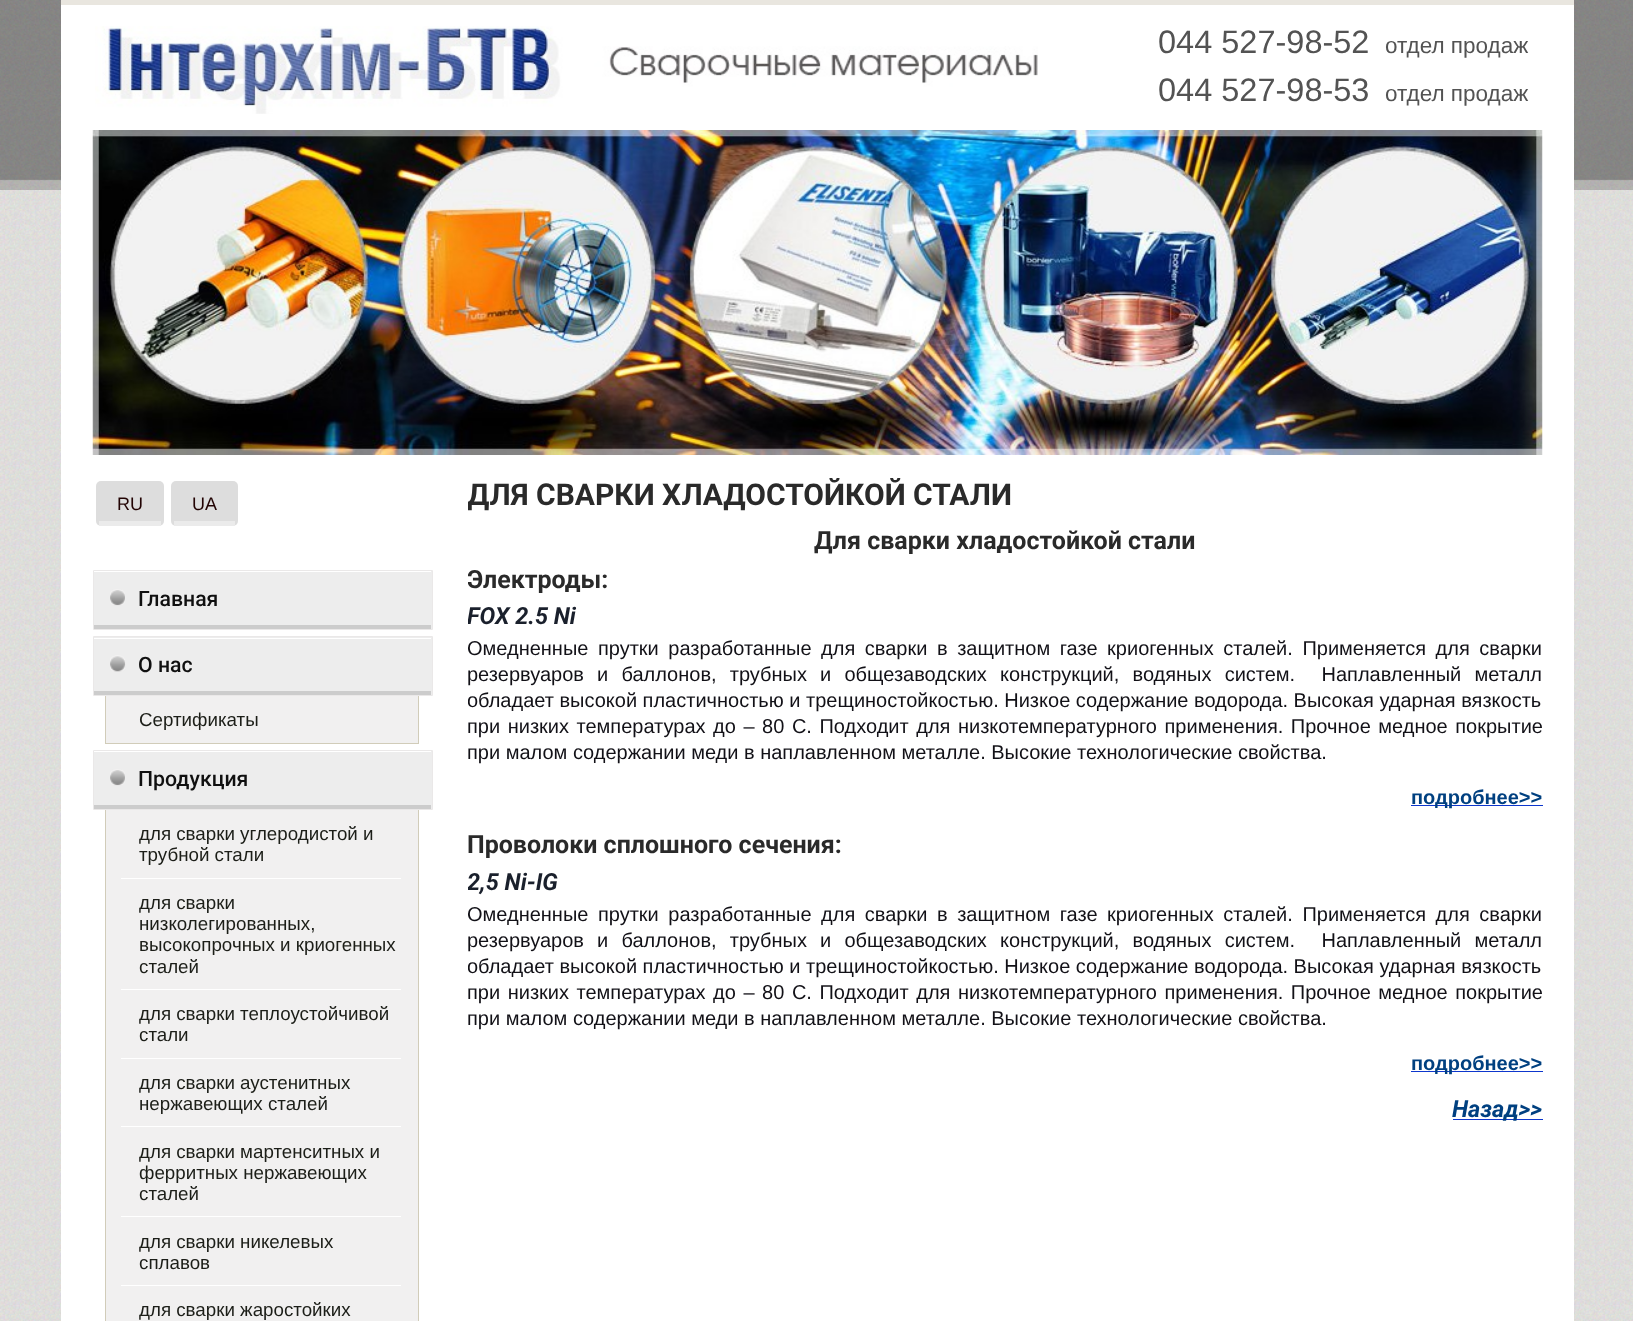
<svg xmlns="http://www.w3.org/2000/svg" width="1633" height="1321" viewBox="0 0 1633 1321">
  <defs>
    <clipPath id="clip1"><path d="M468 478h1075v35H468z"/></clipPath>
    <clipPath id="clip2"><path d="M468 525h1075v618H468z"/></clipPath>
  </defs>
  <rect width="100%" height="100%" fill="#fff"/>
  <image x="0" y="190" width="1633" height="1131" href="img/1.png"/>
  <image x="0" y="0" width="1633" height="190" href="img/2.png"/>
  <path d="M61 5h1513v1316H61z" fill="#fff"/>
  <path d="M61 0h1513v5H61z" fill="#e9e6df"/>
  <image x="95" y="26" width="943" height="88" href="img/3.png"/>
  <image x="92" y="130" width="1451" height="325" href="img/4.png"/>
  <rect x="96" y="481" width="68" height="45" rx="5" fill="#ddd"/>
  <path d="M99 521h62v5H99z" fill="#ebebeb"/>
  <rect x="171" y="481" width="67" height="45" rx="5" fill="#ddd"/>
  <path d="M174 521h61v5H174z" fill="#ebebeb"/>
  <path d="M94 571h338v58H94z" fill="#ededed"/>
  <image x="110" y="589" width="15" height="17" href="img/5.png"/>
  <path d="M94 571h337v1H94z" fill="#fff"/>
  <path d="M94 625h337v4H94z" fill="#ccc"/>
  <path d="M93.5 570.5h339v59H93.5z" fill="none" stroke="#eae8e8"/>
  <path d="M94 637h338v58H94z" fill="#ededed"/>
  <image x="110" y="655" width="16" height="17" href="img/6.png"/>
  <path d="M94 638h337v1H94z" fill="#fff"/>
  <path d="M94 691h337v4H94z" fill="#ccc"/>
  <path d="M93.5 636.5h339v59H93.5z" fill="none" stroke="#eae8e8"/>
  <path d="M106 696h312v47H106z" fill="#f1f0f0"/>
  <path d="M418 696h1v48H418z" fill="#d1ccb9"/>
  <path d="M105 743h314v1H105z" fill="#d1ccb9"/>
  <path d="M105 696h1v48H105z" fill="#d1ccb9"/>
  <path d="M94 751h338v58H94z" fill="#ededed"/>
  <image x="110" y="769" width="15" height="17" href="img/7.png"/>
  <path d="M94 751h337v1H94z" fill="#fff"/>
  <path d="M94 805h337v4H94z" fill="#ccc"/>
  <path d="M93.5 750.5h339v59H93.5z" fill="none" stroke="#eae8e8"/>
  <path d="M106 810h312v511H106z" fill="#f1f0f0"/>
  <path d="M418 810h1v511H418z" fill="#d1ccb9"/>
  <path d="M105 810h1v511H105z" fill="#d1ccb9"/>
  <path d="M121 878h280v1H121z" fill="#fff"/>
  <path d="M121 989h280v1H121z" fill="#fff"/>
  <path d="M121 1058h280v1H121z" fill="#fff"/>
  <path d="M121 1126h280v1H121z" fill="#fff"/>
  <path d="M121 1216h280v1H121z" fill="#fff"/>
  <path d="M121 1285h280v1H121z" fill="#fff"/>
  <path d="M1411 805h132v1H1411z" fill="#0d36cd"/>
  <path d="M1411 1071h132v1H1411z" fill="#0d36cd"/>
  <path d="M1453 1119h90v1H1453z" fill="#0d36cd"/>
  <text x="1158" y="53" font-family="Liberation Sans" font-size="32.5" fill="#535353">044 527-98-52</text>
  <text x="1385" y="53" font-family="Liberation Sans" font-size="22.5" fill="#535353">отдел продаж</text>
  <text x="1158" y="101" font-family="Liberation Sans" font-size="32.5" fill="#535353">044 527-98-53</text>
  <text x="1385" y="101" font-family="Liberation Sans" font-size="22.5" fill="#535353">отдел продаж</text>
  <g font-family="Liberation Sans" font-size="18" fill="#220303">
    <text x="117" y="510">RU</text>
    <text x="192" y="510">UA</text>
  </g>
  <g font-family="Roboto" font-size="21.25" font-weight="500" fill="#101010">
    <text x="138" y="606">Главная</text>
    <text x="138" y="672">О нас</text>
  </g>
  <text x="139" y="726" font-family="Liberation Sans" font-size="18.75" fill="#1c1e18">Сертификаты</text>
  <text x="138" y="786" font-family="Roboto" font-size="21.25" font-weight="500" fill="#101010">Продукция</text>
  <g font-family="Liberation Sans" font-size="18.75" fill="#1c1e18">
    <text x="139" y="840">для сварки углеродистой и</text>
    <text x="139" y="861">трубной стали</text>
    <text x="139" y="909">для сварки</text>
    <text x="139" y="930">низколегированных,</text>
    <text x="139" y="951">высокопрочных и криогенных</text>
    <text x="139" y="973">сталей</text>
    <text x="139" y="1020">для сварки теплоустойчивой</text>
    <text x="139" y="1041">стали</text>
    <text x="139" y="1089">для сварки аустенитных</text>
    <text x="139" y="1110">нержавеющих сталей</text>
    <text x="139" y="1158">для сварки мартенситных и</text>
    <text x="139" y="1179">ферритных нержавеющих</text>
    <text x="139" y="1200">сталей</text>
    <text x="139" y="1248">для сварки никелевых</text>
    <text x="139" y="1269">сплавов</text>
    <text x="139" y="1316">для сварки жаростойких</text>
  </g>
  <g clip-path="url(#clip1)">
    <text x="467" y="505" font-family="Roboto" font-size="30" font-weight="bold" fill="#2a2a2a">ДЛЯ СВАРКИ ХЛАДОСТОЙКОЙ СТАЛИ</text>
  </g>
  <text x="814" y="549" font-family="Roboto" font-size="25" font-weight="bold" fill="#2a2a2a">Для сварки хладостойкой стали</text>
  <g clip-path="url(#clip2)">
    <text x="467" y="588" font-family="Roboto" font-size="25" font-weight="bold" fill="#2a2a2a">Электроды:</text>
    <text x="467" y="624" font-family="Roboto" font-size="23.5" font-weight="bold" font-style="italic" fill="#1a202c">FOX 2.5 Ni</text>
  </g>
  <g font-family="Liberation Sans" font-size="20" fill="#121117">
    <text x="467" y="655" word-spacing="4">Омедненные прутки разработанные для сварки в защитном газе криогенных сталей. Применяется для сварки</text>
    <text x="467" y="681" word-spacing="7.6" xml:space="preserve">резервуаров и баллонов, трубных и общезаводских конструкций, водяных систем.  Наплавленный металл</text>
  </g>
  <g clip-path="url(#clip2)">
    <text x="467" y="707" font-family="Liberation Sans" font-size="20" fill="#121117">обладает высокой пластичностью и трещиностойкостью. Низкое содержание водорода. Высокая ударная вязкость</text>
  </g>
  <g font-family="Liberation Sans" font-size="20" fill="#121117">
    <text x="467" y="733" word-spacing="2">при низких температурах до – 80 С. Подходит для низкотемпературного применения. Прочное медное покрытие</text>
    <text x="467" y="759">при малом содержании меди в наплавленном металле. Высокие технологические свойства.</text>
  </g>
  <text x="1411" y="804" font-family="Liberation Sans" font-size="20" font-weight="bold" fill="#004080">подробнее&gt;&gt;</text>
  <text x="467" y="853" font-family="Roboto" font-size="25" font-weight="bold" fill="#2a2a2a">Проволоки сплошного сечения:</text>
  <g clip-path="url(#clip2)">
    <text x="467" y="890" font-family="Roboto" font-size="23.5" font-weight="bold" font-style="italic" fill="#1a202c">2,5 Ni-IG</text>
  </g>
  <g font-family="Liberation Sans" font-size="20" fill="#121117">
    <text x="467" y="921" word-spacing="4">Омедненные прутки разработанные для сварки в защитном газе криогенных сталей. Применяется для сварки</text>
    <text x="467" y="947" word-spacing="7.6" xml:space="preserve">резервуаров и баллонов, трубных и общезаводских конструкций, водяных систем.  Наплавленный металл</text>
  </g>
  <g clip-path="url(#clip2)">
    <text x="467" y="973" font-family="Liberation Sans" font-size="20" fill="#121117">обладает высокой пластичностью и трещиностойкостью. Низкое содержание водорода. Высокая ударная вязкость</text>
  </g>
  <g font-family="Liberation Sans" font-size="20" fill="#121117">
    <text x="467" y="999" word-spacing="2">при низких температурах до – 80 С. Подходит для низкотемпературного применения. Прочное медное покрытие</text>
    <text x="467" y="1025">при малом содержании меди в наплавленном металле. Высокие технологические свойства.</text>
  </g>
  <text x="1411" y="1070" font-family="Liberation Sans" font-size="20" font-weight="bold" fill="#004080">подробнее&gt;&gt;</text>
  <text x="1452" y="1117" font-family="Roboto" font-size="23.5" font-weight="bold" font-style="italic" fill="#004080">Назад&gt;&gt;</text>
</svg>
